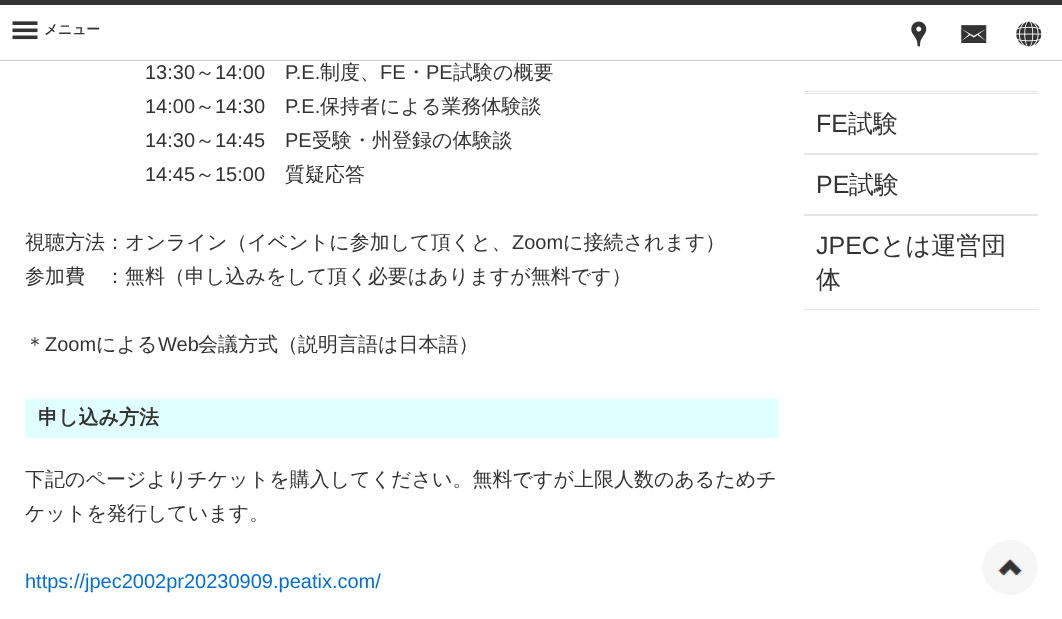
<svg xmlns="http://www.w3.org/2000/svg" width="1062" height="619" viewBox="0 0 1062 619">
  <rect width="100%" height="100%" fill="#fff"/>
  <path d="M0 0h1062v5H0z" fill="#333"/>
  <path d="M0 60h1062v1H0z" fill="#ccc"/>
  <image x="12" y="21" width="26" height="19" href="img/1.png"/>
  <image x="911" y="21" width="16" height="26" href="img/2.png"/>
  <image x="961" y="25" width="26" height="18" href="img/3.png"/>
  <image x="1016" y="21" width="26" height="26" href="img/4.png"/>
  <path d="M25 399h754v39H25z" fill="#e0ffff"/>
  <path d="M804 91h234v1H804z" fill="#e5e5e5"/>
  <path d="M804 93h234v1H804z" fill="#e5e5e5"/>
  <path d="M804 153h234v2H804z" fill="#e5e5e5"/>
  <path d="M804 214h234v2H804z" fill="#e5e5e5"/>
  <path d="M804 309h234v1H804z" fill="#e5e5e5"/>
  <image x="982" y="540" width="56" height="55" href="img/5.png"/>
  <text x="44" y="34" font-family="WenQuanYi Zen Hei" font-size="13.75" font-weight="bold" fill="#333">メニュー</text>
  <text x="145" y="79" font-family="Liberation Sans" font-size="20" fill="#333">13:30</text>
  <text x="195" y="79" font-family="WenQuanYi Zen Hei" font-size="20" font-weight="500" fill="#333">～</text>
  <g font-family="Liberation Sans" font-size="20" fill="#333">
    <text x="215" y="79">14:00</text>
    <text x="285" y="79">P.E.</text>
  </g>
  <text x="320" y="79" font-family="WenQuanYi Zen Hei" font-size="20" font-weight="500" fill="#333">制度、</text>
  <text x="380" y="79" font-family="Liberation Sans" font-size="20" fill="#333">FE</text>
  <text x="406" y="79" font-family="WenQuanYi Zen Hei" font-size="20" font-weight="500" fill="#333">・</text>
  <text x="426" y="79" font-family="Liberation Sans" font-size="20" fill="#333">PE</text>
  <text x="453" y="79" font-family="WenQuanYi Zen Hei" font-size="20" font-weight="500" fill="#333">試験の概要</text>
  <text x="145" y="113" font-family="Liberation Sans" font-size="20" fill="#333">14:00</text>
  <text x="195" y="113" font-family="WenQuanYi Zen Hei" font-size="20" font-weight="500" fill="#333">～</text>
  <g font-family="Liberation Sans" font-size="20" fill="#333">
    <text x="215" y="113">14:30</text>
    <text x="285" y="113">P.E.</text>
  </g>
  <text x="320" y="113" font-family="WenQuanYi Zen Hei" font-size="20" font-weight="500" fill="#333">保持者による業務体験談</text>
  <text x="145" y="147" font-family="Liberation Sans" font-size="20" fill="#333">14:30</text>
  <text x="195" y="147" font-family="WenQuanYi Zen Hei" font-size="20" font-weight="500" fill="#333">～</text>
  <g font-family="Liberation Sans" font-size="20" fill="#333">
    <text x="215" y="147">14:45</text>
    <text x="285" y="147">PE</text>
  </g>
  <text x="312" y="147" font-family="WenQuanYi Zen Hei" font-size="20" font-weight="500" fill="#333">受験・州登録の体験談</text>
  <text x="145" y="181" font-family="Liberation Sans" font-size="20" fill="#333">14:45</text>
  <text x="195" y="181" font-family="WenQuanYi Zen Hei" font-size="20" font-weight="500" fill="#333">～</text>
  <text x="215" y="181" font-family="Liberation Sans" font-size="20" fill="#333">15:00</text>
  <g font-family="WenQuanYi Zen Hei" font-size="20" font-weight="500" fill="#333">
    <text x="285" y="181">質疑応答</text>
    <text x="25" y="249">視聴方法：オンライン（イベントに参加して頂くと、</text>
  </g>
  <text x="512" y="249" font-family="Liberation Sans" font-size="20" fill="#333">Zoom</text>
  <g font-family="WenQuanYi Zen Hei" font-size="20" font-weight="500" fill="#333">
    <text x="563" y="249">に接続されます）</text>
    <text x="25" y="283">参加費　：無料（申し込みをして頂く必要はありますが無料です）</text>
    <text x="25" y="351">＊</text>
  </g>
  <text x="45" y="351" font-family="Liberation Sans" font-size="20" fill="#333">Zoom</text>
  <text x="96" y="351" font-family="WenQuanYi Zen Hei" font-size="20" font-weight="500" fill="#333">による</text>
  <text x="158" y="351" font-family="Liberation Sans" font-size="20" fill="#333">Web</text>
  <text x="198" y="351" font-family="WenQuanYi Zen Hei" font-size="20" font-weight="500" fill="#333">会議方式（説明言語は日本語）</text>
  <text x="38" y="424" font-family="WenQuanYi Zen Hei" font-size="20" font-weight="bold" fill="#333">申し込み方法</text>
  <g font-family="WenQuanYi Zen Hei" font-size="20" font-weight="500" fill="#333">
    <text x="25" y="486">下記のページよりチケットを購入してください。無料ですが上限人数のあるためチ</text>
    <text x="25" y="520">ケットを発行しています。</text>
  </g>
  <text x="25" y="588" font-family="Liberation Sans" font-size="20" fill="#006dd9">https://jpec2002pr20230909.peatix.com/</text>
  <text x="816" y="132" font-family="Liberation Sans" font-size="25" fill="#333">FE</text>
  <text x="848" y="132" font-family="WenQuanYi Zen Hei" font-size="25" font-weight="500" fill="#333">試験</text>
  <text x="816" y="193" font-family="Liberation Sans" font-size="25" fill="#333">PE</text>
  <text x="849" y="193" font-family="WenQuanYi Zen Hei" font-size="25" font-weight="500" fill="#333">試験</text>
  <text x="816" y="254" font-family="Liberation Sans" font-size="25" fill="#333">JPEC</text>
  <g font-family="WenQuanYi Zen Hei" font-size="25" font-weight="500" fill="#333">
    <text x="880" y="254">とは運営団</text>
    <text x="816" y="288">体</text>
  </g>
</svg>
